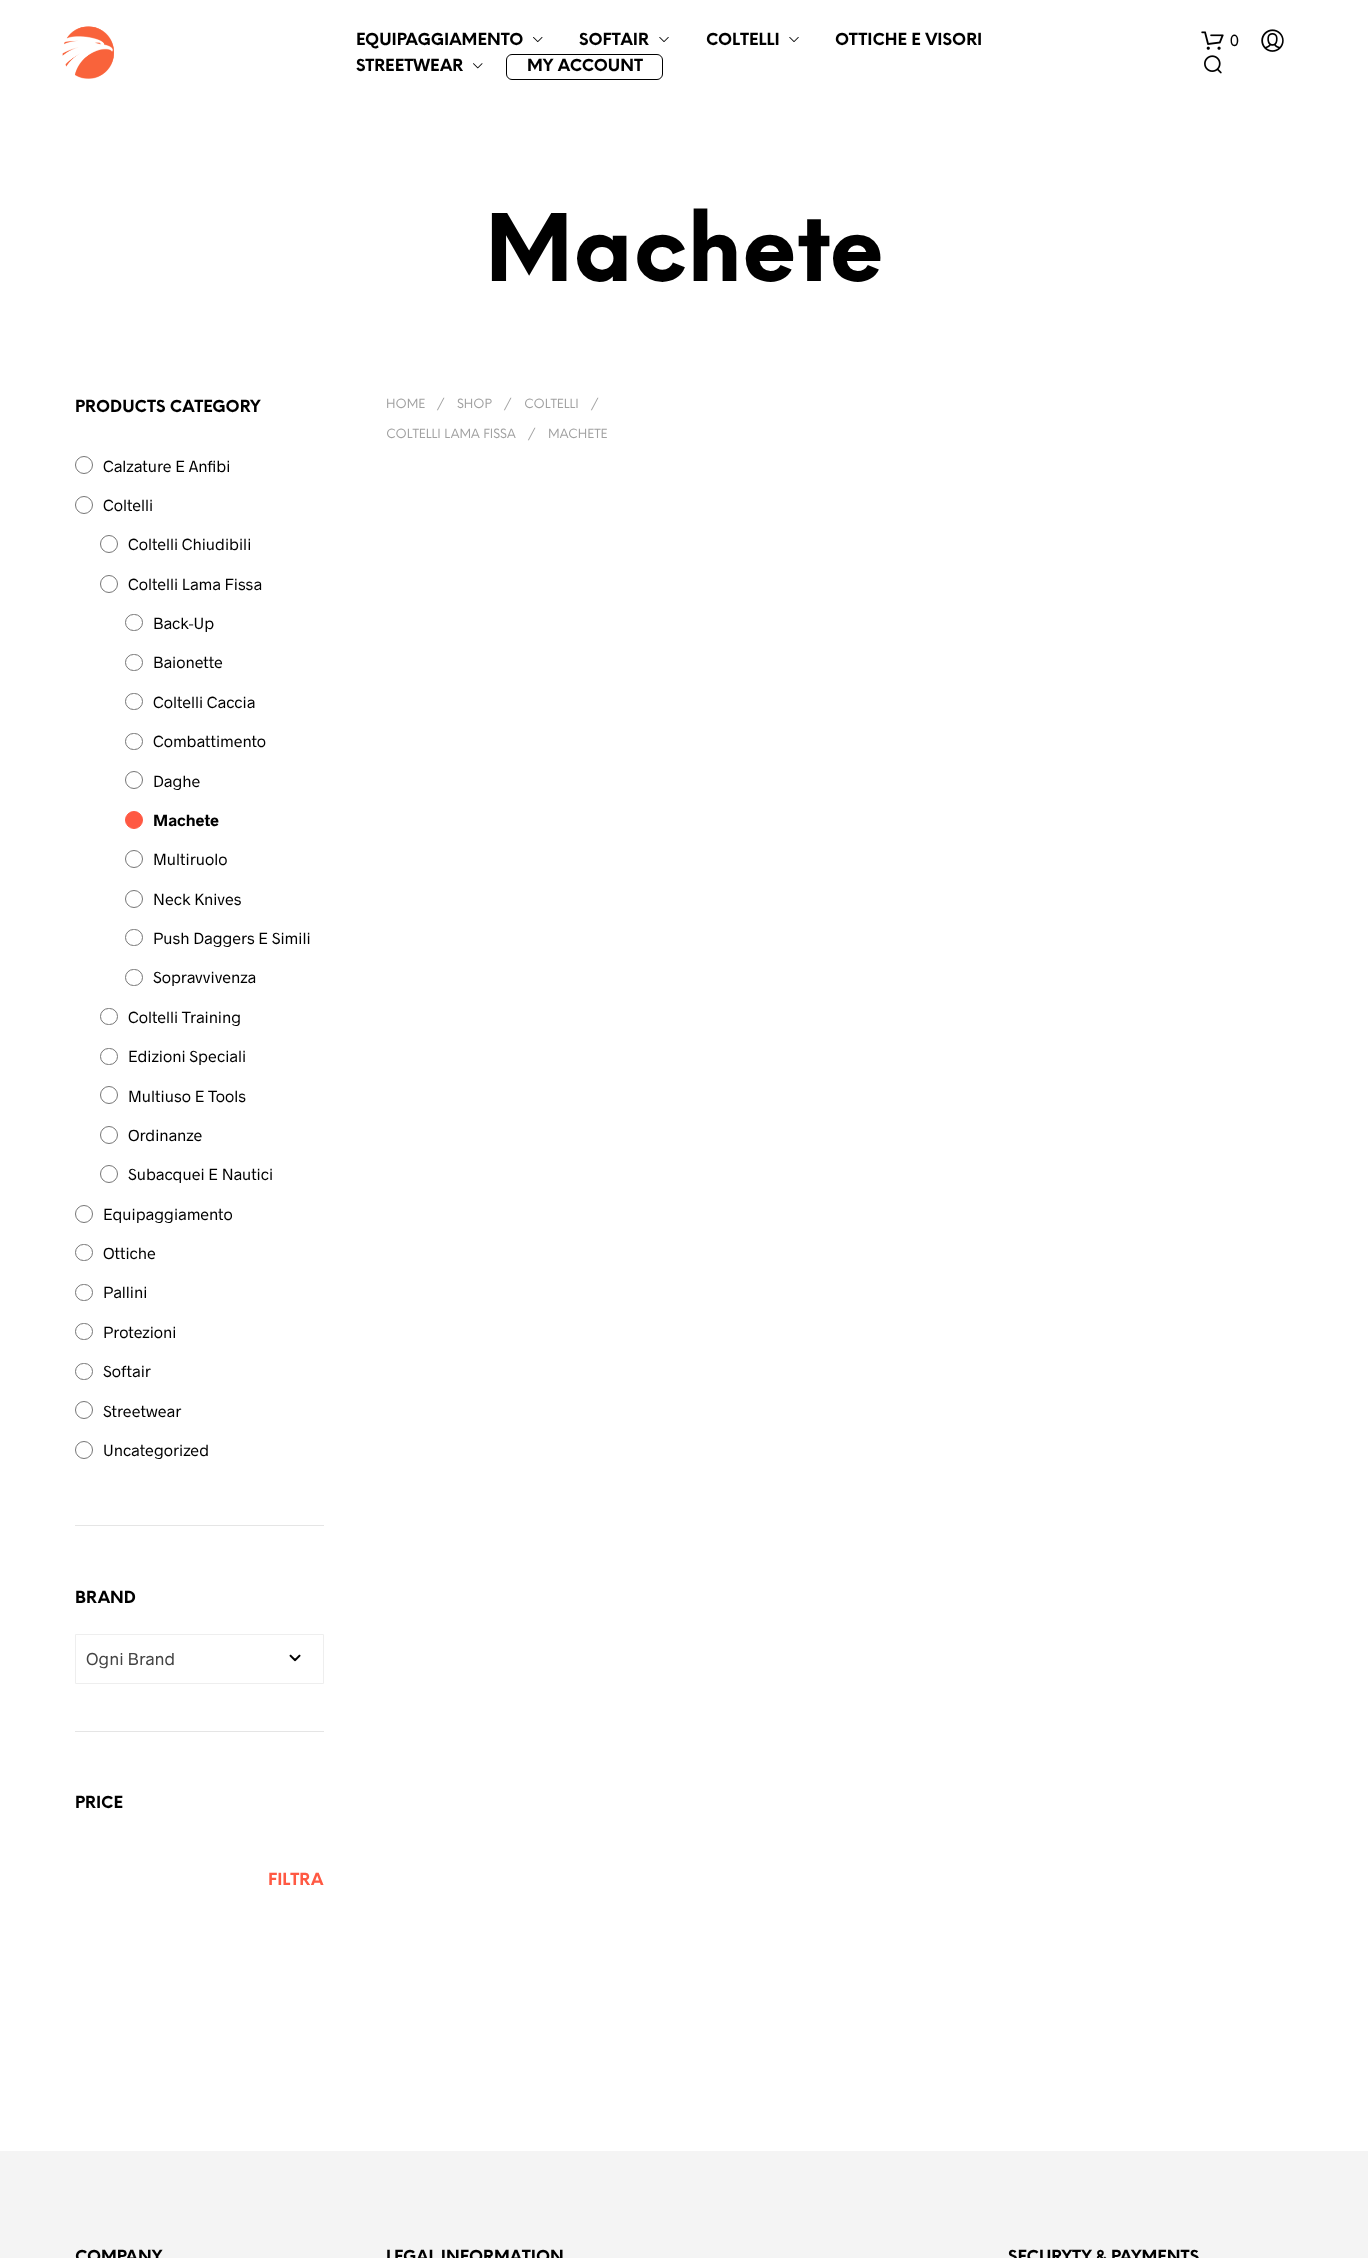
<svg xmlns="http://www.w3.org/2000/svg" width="1368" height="2258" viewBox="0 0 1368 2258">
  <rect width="100%" height="100%" fill="#fff"/>
  <image x="62" y="26" width="52" height="53" href="img/1.png"/>
  <image x="533" y="37" width="10" height="6" href="img/2.png"/>
  <image x="659" y="37" width="10" height="5" href="img/3.png"/>
  <image x="789" y="37" width="10" height="5" href="img/3.png"/>
  <image x="473" y="63" width="10" height="6" href="img/4.png"/>
  <rect x="506.5" y="54.5" width="156" height="25" rx="5.5" fill="none" stroke="#000"/>
  <image x="1201" y="31" width="23" height="19" href="img/5.png"/>
  <image x="1261" y="29" width="23" height="23" href="img/6.png"/>
  <image x="1204" y="55" width="18" height="19" href="img/7.png"/>
  <path d="M75 1525h249v1H75z" fill="#e5e5e5"/>
  <circle cx="84" cy="465" r="8.5" fill="none" stroke="#767676"/>
  <circle cx="84" cy="505" r="8.5" fill="none" stroke="#767676"/>
  <circle cx="109" cy="544" r="8.5" fill="none" stroke="#767676"/>
  <circle cx="109" cy="584" r="8.5" fill="none" stroke="#767676"/>
  <rect x="125.5" y="614.5" width="17" height="16" rx="8" fill="none" stroke="#767676"/>
  <rect x="125.5" y="654.5" width="17" height="16" rx="8" fill="none" stroke="#767676"/>
  <rect x="125.5" y="693.5" width="17" height="16" rx="8" fill="none" stroke="#767676"/>
  <rect x="125.5" y="733.5" width="17" height="16" rx="8" fill="none" stroke="#767676"/>
  <circle cx="134" cy="780" r="8.5" fill="none" stroke="#767676"/>
  <circle cx="134" cy="820" r="8.5" fill="#ff5943" stroke="#ff5943"/>
  <circle cx="134" cy="859" r="8.5" fill="none" stroke="#767676"/>
  <circle cx="134" cy="899" r="8.5" fill="none" stroke="#767676"/>
  <rect x="125.5" y="929.5" width="17" height="16" rx="8" fill="none" stroke="#767676"/>
  <rect x="125.5" y="969.5" width="17" height="16" rx="8" fill="none" stroke="#767676"/>
  <rect x="100.5" y="1008.5" width="17" height="16" rx="8" fill="none" stroke="#767676"/>
  <rect x="100.5" y="1048.5" width="17" height="16" rx="8" fill="none" stroke="#767676"/>
  <circle cx="109" cy="1095" r="8.5" fill="none" stroke="#767676"/>
  <circle cx="109" cy="1135" r="8.5" fill="none" stroke="#767676"/>
  <circle cx="109" cy="1174" r="8.5" fill="none" stroke="#767676"/>
  <circle cx="84" cy="1214" r="8.5" fill="none" stroke="#767676"/>
  <rect x="75.5" y="1244.5" width="17" height="16" rx="8" fill="none" stroke="#767676"/>
  <rect x="75.5" y="1284.5" width="17" height="16" rx="8" fill="none" stroke="#767676"/>
  <rect x="75.5" y="1323.5" width="17" height="16" rx="8" fill="none" stroke="#767676"/>
  <rect x="75.5" y="1363.5" width="17" height="16" rx="8" fill="none" stroke="#767676"/>
  <circle cx="84" cy="1410" r="8.5" fill="none" stroke="#767676"/>
  <circle cx="84" cy="1450" r="8.5" fill="none" stroke="#767676"/>
  <path d="M75 1731h249v1H75z" fill="#e5e5e5"/>
  <image x="289" y="1654" width="12" height="8" href="img/8.png"/>
  <path d="M75.5 1634.5h248v49H75.5z" fill="none" stroke="#eee"/>
  <path d="M0 2151h1368v107H0z" fill="#f4f4f4"/>
  <g font-family="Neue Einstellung" font-size="16.25" font-weight="bold" fill="#000">
    <text x="356" y="45">EQUIPAGGIAMENTO</text>
    <text x="579" y="45">SOFTAIR</text>
    <text x="706" y="45">COLTELLI</text>
    <text x="835" y="45">OTTICHE E VISORI</text>
    <text x="356" y="71">STREETWEAR</text>
    <text x="527" y="71">MY ACCOUNT</text>
  </g>
  <text x="1230" y="46" font-family="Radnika" font-size="16.25" fill="#000">0</text>
  <text x="485" y="281" font-family="Neue Einstellung" font-size="90.75" font-weight="bold" fill="#000">Machete</text>
  <text x="75" y="412" font-family="Neue Einstellung" font-size="16.25" font-weight="bold" fill="#000">PRODUCTS CATEGORY</text>
  <g font-family="Radnika" font-size="16.25" fill="#000">
    <text x="103" y="472">Calzature E Anfibi</text>
    <text x="103" y="511">Coltelli</text>
    <text x="128" y="550">Coltelli Chiudibili</text>
    <text x="128" y="590">Coltelli Lama Fissa</text>
    <text x="153" y="629">Back-Up</text>
    <text x="153" y="668">Baionette</text>
    <text x="153" y="708">Coltelli Caccia</text>
    <text x="153" y="747">Combattimento</text>
    <text x="153" y="787">Daghe</text>
  </g>
  <text x="153" y="826" font-family="Radnika" font-size="16.25" font-weight="bold" fill="#000">Machete</text>
  <g font-family="Radnika" font-size="16.25" fill="#000">
    <text x="153" y="865">Multiruolo</text>
    <text x="153" y="905">Neck Knives</text>
    <text x="153" y="944">Push Daggers E Simili</text>
    <text x="153" y="983">Sopravvivenza</text>
    <text x="128" y="1023">Coltelli Training</text>
    <text x="128" y="1062">Edizioni Speciali</text>
    <text x="128" y="1102">Multiuso E Tools</text>
    <text x="128" y="1141">Ordinanze</text>
    <text x="128" y="1180">Subacquei E Nautici</text>
    <text x="103" y="1220">Equipaggiamento</text>
    <text x="103" y="1259">Ottiche</text>
    <text x="103" y="1298">Pallini</text>
    <text x="103" y="1338">Protezioni</text>
    <text x="103" y="1377">Softair</text>
    <text x="103" y="1417">Streetwear</text>
    <text x="103" y="1456">Uncategorized</text>
  </g>
  <text x="75" y="1603" font-family="Neue Einstellung" font-size="16.25" font-weight="bold" fill="#000">BRAND</text>
  <text x="86" y="1665" font-family="Radnika" font-size="17.5" fill="#444">Ogni Brand</text>
  <text x="75" y="1808" font-family="Neue Einstellung" font-size="16.25" font-weight="bold" fill="#000">PRICE</text>
  <text x="268" y="1885" font-family="Neue Einstellung" font-size="16.25" font-weight="bold" fill="#ff5943">FILTRA</text>
  <g font-family="Neue Einstellung" font-size="12.5" fill="#a1a1a1">
    <text x="386" y="408">HOME</text>
    <text x="437" y="408">/</text>
    <text x="457" y="408">SHOP</text>
    <text x="504" y="408">/</text>
    <text x="524" y="408">COLTELLI</text>
    <text x="591" y="408">/</text>
    <text x="386" y="438">COLTELLI LAMA FISSA</text>
    <text x="528" y="438">/</text>
    <text x="548" y="438">MACHETE</text>
  </g>
  <g font-family="Neue Einstellung" font-size="16.25" font-weight="bold" fill="#000">
    <text x="75" y="2262">COMPANY</text>
    <text x="386" y="2262">LEGAL INFORMATION</text>
    <text x="1008" y="2262">SECURYTY &amp; PAYMENTS</text>
  </g>
</svg>
